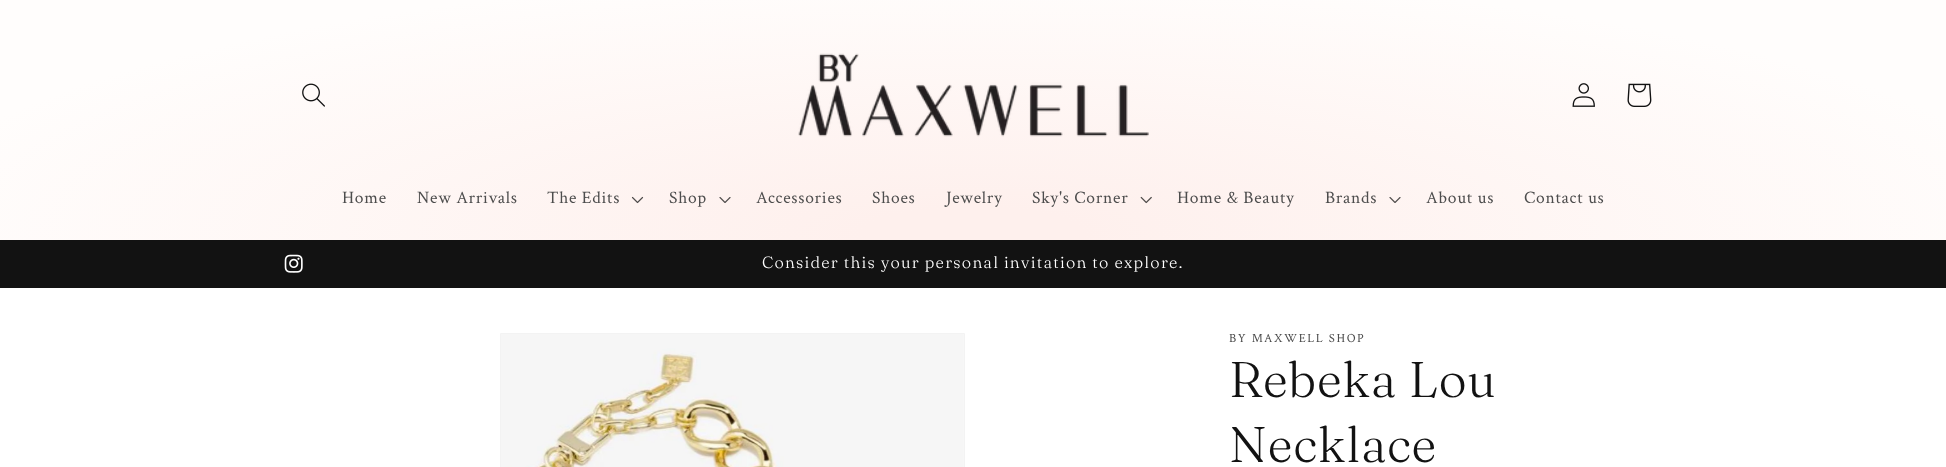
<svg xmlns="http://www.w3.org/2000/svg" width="1946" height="467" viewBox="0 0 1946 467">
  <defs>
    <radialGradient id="g1" gradientUnits="userSpaceOnUse" cx="0" cy="0" r="1" gradientTransform="matrix(1376 0 0 331 973 234)"><stop offset="0.08" stop-color="#fef0ed"/><stop offset="0.79" stop-color="#fffdfc"/></radialGradient>
  </defs>
  <rect width="100%" height="100%" fill="#fff"/>
  <path d="M0 0h1946v240H0z" fill="url(#g1)"/>
  <image x="302" y="83" width="23" height="24" href="img/1.png"/>
  <image x="798" y="53" width="351" height="84" href="img/2.png"/>
  <image x="1572" y="83" width="23" height="24" href="img/3.png"/>
  <image x="1627" y="83" width="25" height="24" href="img/4.png"/>
  <image x="631" y="196" width="13" height="8" href="img/5.png"/>
  <image x="719" y="197" width="12" height="6" href="img/6.png"/>
  <image x="1140" y="196" width="12" height="8" href="img/7.png"/>
  <image x="1389" y="197" width="12" height="6" href="img/8.png"/>
  <path d="M0 240h1946v48H0z" fill="#121212"/>
  <image x="284" y="254" width="19" height="19" href="img/9.png"/>
  <path d="M500.5 333.5h464v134H500.5z" fill="none" stroke="#f3f3f3"/>
  <image x="501" y="334" width="463" height="133" href="img/10.png"/>
  <g font-family="Crimson Text" font-size="17.5" letter-spacing="0.75" fill="#4d4d4d">
    <text x="342" y="203">Home</text>
    <text x="417" y="203">New Arrivals</text>
    <text x="547" y="203">The Edits</text>
    <text x="669" y="203">Shop</text>
    <text x="756" y="203">Accessories</text>
    <text x="872" y="203">Shoes</text>
    <text x="946" y="203">Jewelry</text>
    <text x="1032" y="203">Sky's Corner</text>
    <text x="1177" y="203">Home &amp; Beauty</text>
    <text x="1325" y="203">Brands</text>
    <text x="1426" y="203">About us</text>
    <text x="1524" y="203">Contact us</text>
  </g>
  <text x="762" y="268" word-spacing="-0.25" font-family="Fraunces" font-size="16.25" font-weight="300" letter-spacing="1.25" fill="#fff">Consider this your personal invitation to explore.</text>
  <text x="1229" y="342" font-family="Crimson Text" font-size="12.5" letter-spacing="1.6" fill="#4d4d4d">BY MAXWELL SHOP</text>
  <g font-family="'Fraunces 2'" font-size="50" font-weight="300" letter-spacing="0.75" fill="#121212">
    <text x="1229" y="397">Rebeka Lou</text>
    <text x="1229" y="462">Necklace</text>
  </g>
</svg>
